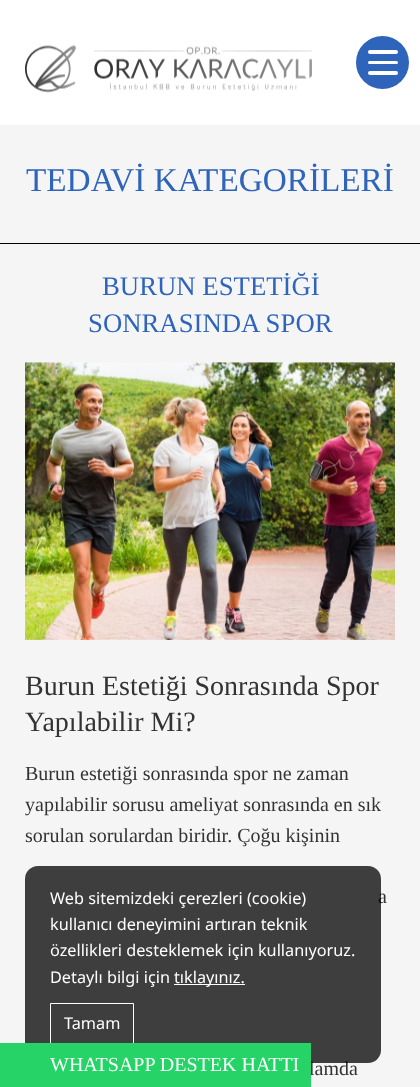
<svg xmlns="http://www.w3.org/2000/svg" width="420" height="1087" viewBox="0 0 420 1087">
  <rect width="100%" height="100%" fill="#000"/>
  <path d="M0 0h420v125H0z" fill="#fff"/>
  <image x="25" y="45" width="287" height="48" href="img/1.png"/>
  <circle cx="382.5" cy="62.5" r="26.5" fill="#2f64bb"/>
  <rect x="368" y="50" width="30" height="4" rx="2" fill="#fff"/>
  <rect x="368" y="61" width="30" height="3" rx="1.5" fill="#fff"/>
  <rect x="368" y="71" width="30" height="4" rx="2" fill="#fff"/>
  <path d="M0 125h420v118H0z" fill="#f5f5f5"/>
  <path d="M0 244h420v843H0z" fill="#f5f5f5"/>
  <image x="25" y="362" width="370" height="278" href="img/2.png"/>
  <text x="26" y="191" font-family="Liberation Serif" font-size="33.25" fill="#2f64bb">TEDAVİ KATEGORİLERİ</text>
  <g font-family="Liberation Serif" font-size="26.75" fill="#2f64bb">
    <text x="102" y="295">BURUN ESTETİĞİ</text>
    <text x="88" y="332">SONRASINDA SPOR</text>
  </g>
  <g font-family="Liberation Serif" font-size="28" fill="#333">
    <text x="25" y="695">Burun Estetiği Sonrasında Spor</text>
    <text x="25" y="731">Yapılabilir Mi?</text>
  </g>
  <g font-family="Liberation Serif" font-size="20" fill="#333">
    <text x="25" y="780">Burun estetiği sonrasında spor ne zaman</text>
    <text x="25" y="811">yapılabilir sorusu ameliyat sonrasında en sık</text>
    <text x="25" y="842">sorulan sorulardan biridir. Çoğu kişinin</text>
    <text x="378" y="903">a</text>
    <text x="309" y="1075">lamda</text>
  </g>
  <rect x="25" y="866" width="356" height="197" rx="13" fill="#000000bf"/>
  <g font-family="Noto Sans" font-size="16.25" fill="#fff">
    <text x="50" y="904">Web sitemizdeki çerezleri (cookie)</text>
    <text x="50" y="930">kullanıcı deneyimini artıran teknik</text>
    <text x="50" y="956">özellikleri desteklemek için kullanıyoruz.</text>
    <text x="50" y="983">Detaylı bilgi için</text>
  </g>
  <path d="M174 984h71v1H174z" fill="#fff"/>
  <text x="174" y="983" font-family="Noto Sans" font-size="16.25" fill="#fff">tıklayınız.</text>
  <path d="M50.5 1003.5h83v40H50.5z" fill="none" stroke="#fff"/>
  <text x="64" y="1029" font-family="Noto Sans" font-size="16.25" fill="#fff">Tamam</text>
  <path d="M0 1043h311v44H0z" fill="#25d366"/>
  <text x="50" y="1071" font-family="Liberation Serif" font-size="20" fill="#fff">WHATSAPP DESTEK HATTI</text>
</svg>
